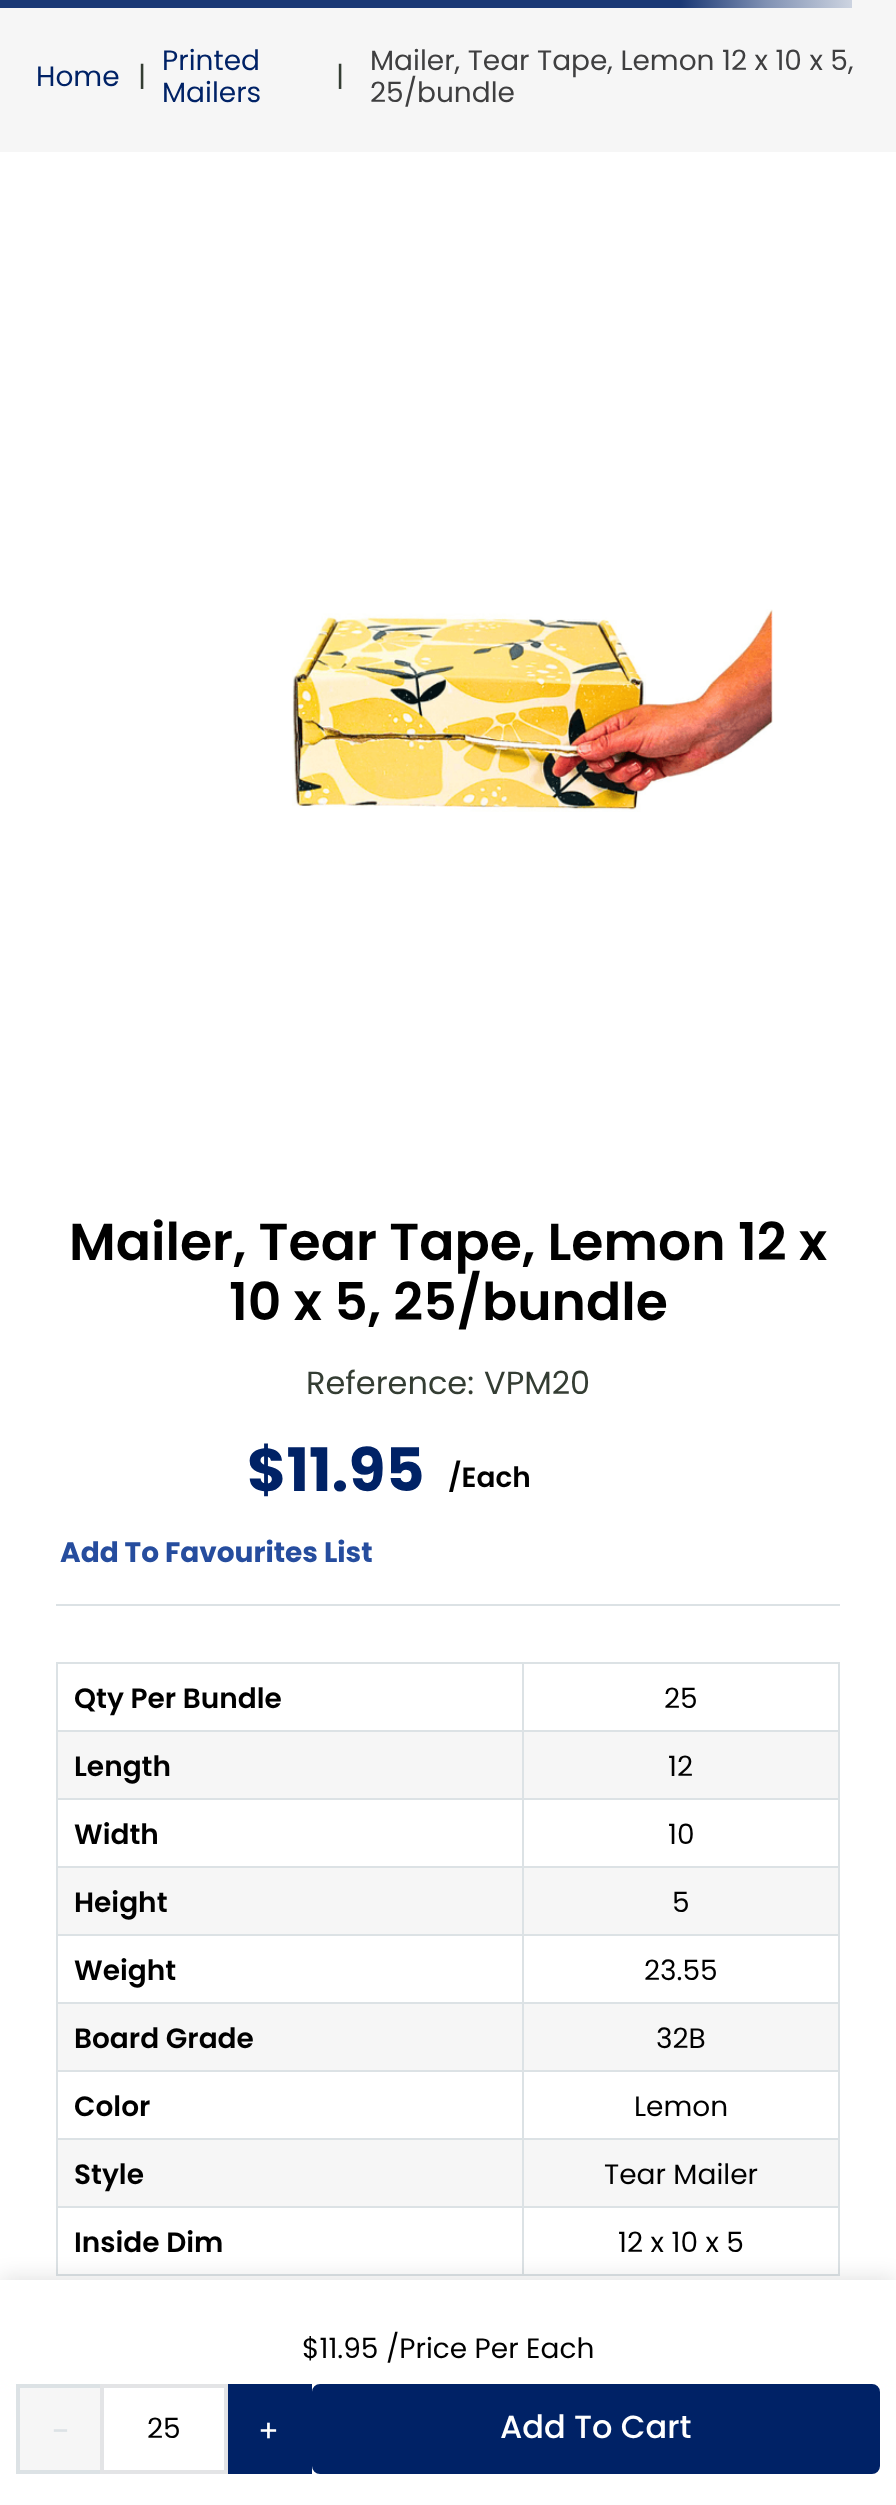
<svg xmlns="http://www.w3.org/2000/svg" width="896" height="2505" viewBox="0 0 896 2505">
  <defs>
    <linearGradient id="g1" gradientUnits="userSpaceOnUse" x1="0" y1="4" x2="851" y2="4"><stop offset="0.8" stop-color="#1a3875"/><stop offset="0.9" stop-color="#8091b3"/><stop offset="1" stop-color="#ccd3e0"/></linearGradient>
  </defs>
  <rect width="100%" height="100%" fill="#fff"/>
  <path d="M0 0h896v152H0z" fill="#f6f6f6"/>
  <path d="M0 0h852v8H0z" fill="url(#g1)"/>
  <image x="292" y="609" width="481" height="203" href="img/1.png"/>
  <path d="M56 1604h784v2H56z" fill="#dce2e5"/>
  <path d="M522 1662h318v2H522z" fill="#dce2e5"/>
  <path d="M522 1730h318v2H522z" fill="#dce2e5"/>
  <path d="M58 1732h780v66H58z" fill="#f6f6f6"/>
  <path d="M522 1798h318v2H522z" fill="#dce2e5"/>
  <path d="M522 1866h318v2H522z" fill="#dce2e5"/>
  <path d="M58 1868h780v66H58z" fill="#f6f6f6"/>
  <path d="M522 1934h318v2H522z" fill="#dce2e5"/>
  <path d="M522 2002h318v2H522z" fill="#dce2e5"/>
  <path d="M58 2004h780v66H58z" fill="#f6f6f6"/>
  <path d="M522 2070h318v2H522z" fill="#dce2e5"/>
  <path d="M522 2138h318v2H522z" fill="#dce2e5"/>
  <path d="M58 2140h780v66H58z" fill="#f6f6f6"/>
  <path d="M522 2206h318v2H522z" fill="#dce2e5"/>
  <path d="M838 2206h2v70H838z" fill="#dce2e5"/>
  <path d="M522 2274h318v2H522z" fill="#dce2e5"/>
  <path d="M522 2206h2v70H522z" fill="#dce2e5"/>
  <path d="M56 2206h468v2H56z" fill="#dce2e5"/>
  <path d="M522 2138h2v70H522z" fill="#dce2e5"/>
  <path d="M56 2138h468v2H56z" fill="#dce2e5"/>
  <path d="M522 2070h2v70H522z" fill="#dce2e5"/>
  <path d="M56 2070h468v2H56z" fill="#dce2e5"/>
  <path d="M522 2002h2v70H522z" fill="#dce2e5"/>
  <path d="M56 2002h468v2H56z" fill="#dce2e5"/>
  <path d="M522 1934h2v70H522z" fill="#dce2e5"/>
  <path d="M56 1934h468v2H56z" fill="#dce2e5"/>
  <path d="M522 1866h2v70H522z" fill="#dce2e5"/>
  <path d="M56 1866h468v2H56z" fill="#dce2e5"/>
  <path d="M522 1798h2v70H522z" fill="#dce2e5"/>
  <path d="M56 1798h468v2H56z" fill="#dce2e5"/>
  <path d="M522 1730h2v70H522z" fill="#dce2e5"/>
  <path d="M56 1730h468v2H56z" fill="#dce2e5"/>
  <path d="M522 1662h2v70H522z" fill="#dce2e5"/>
  <path d="M56 1662h468v2H56z" fill="#dce2e5"/>
  <path d="M56 2274h468v2H56z" fill="#dce2e5"/>
  <path d="M56 2206h2v70H56z" fill="#dce2e5"/>
  <path d="M56 2138h2v70H56z" fill="#dce2e5"/>
  <path d="M56 2070h2v70H56z" fill="#dce2e5"/>
  <path d="M56 2002h2v70H56z" fill="#dce2e5"/>
  <path d="M56 1934h2v70H56z" fill="#dce2e5"/>
  <path d="M56 1866h2v70H56z" fill="#dce2e5"/>
  <path d="M56 1798h2v70H56z" fill="#dce2e5"/>
  <path d="M56 1730h2v70H56z" fill="#dce2e5"/>
  <path d="M56 1662h2v70H56z" fill="#dce2e5"/>
  <path d="M838 2138h2v70H838z" fill="#dce2e5"/>
  <path d="M838 2070h2v70H838z" fill="#dce2e5"/>
  <path d="M838 2002h2v70H838z" fill="#dce2e5"/>
  <path d="M838 1934h2v70H838z" fill="#dce2e5"/>
  <path d="M838 1866h2v70H838z" fill="#dce2e5"/>
  <path d="M838 1798h2v70H838z" fill="#dce2e5"/>
  <path d="M838 1730h2v70H838z" fill="#dce2e5"/>
  <path d="M838 1662h2v70H838z" fill="#dce2e5"/>
  <path d="M0 2276h896v226H0z" fill="#0000001a" filter="blur(10px)"/>
  <path d="M0 2280h896v225H0z" fill="#fff"/>
  <path d="M20 2388h80v82H20z" fill="#f6f6f6"/>
  <path d="M16 2384h84v4H16z" fill="#dce2e5"/>
  <path d="M16 2470h84v4H16z" fill="#dce2e5"/>
  <path d="M16 2384h4v90H16z" fill="#dce2e5"/>
  <path d="M102 2386h124v86H102z" fill="none" stroke="#e3e4e6" stroke-width="4"/>
  <path d="M228 2388h80v82H228z" fill="#026"/>
  <path d="M228 2384h84v4H228z" fill="#026"/>
  <path d="M308 2384h4v90H308z" fill="#026"/>
  <path d="M228 2470h84v4H228z" fill="#026"/>
  <rect x="314" y="2386" width="564" height="86" rx="6" fill="#026" stroke="#026" stroke-width="4"/>
  <text x="36" y="86" font-family="Poppins" font-size="28" fill="#026">Home</text>
  <text x="138" y="86" font-family="Poppins" font-size="28" fill="#343d33">|</text>
  <g font-family="Poppins" font-size="28" fill="#026">
    <text x="162" y="70">Printed</text>
    <text x="162" y="102">Mailers</text>
  </g>
  <text x="336" y="86" font-family="Poppins" font-size="28" fill="#343d33">|</text>
  <g font-family="Poppins" font-size="28" fill="#3f3f40">
    <text x="370" y="70">Mailer, Tear Tape, Lemon 12 x 10 x 5,</text>
    <text x="370" y="102">25/bundle</text>
  </g>
  <g font-family="Poppins" font-size="52" font-weight="600" fill="#000">
    <text x="69" y="1260">Mailer, Tear Tape, Lemon 12 x</text>
    <text x="229" y="1320">10 x 5, 25/bundle</text>
  </g>
  <g font-family="Poppins" font-size="32" fill="#343d33">
    <text x="306" y="1394">Reference:</text>
    <text x="484" y="1394">VPM20</text>
  </g>
  <text x="247" y="1491" font-family="Poppins" font-size="60" font-weight="bold" fill="#026">$11.95</text>
  <text x="448" y="1487" font-family="Poppins" font-size="28" font-weight="600" fill="#000">/Each</text>
  <text x="60" y="1562" font-family="Poppins" font-size="28" font-weight="bold" fill="#264d9e">Add To Favourites List</text>
  <text x="74" y="1708" font-family="Poppins" font-size="28" font-weight="600" fill="#000">Qty Per Bundle</text>
  <text x="664" y="1708" font-family="Poppins" font-size="28" fill="#000">25</text>
  <text x="74" y="1776" font-family="Poppins" font-size="28" font-weight="600" fill="#000">Length</text>
  <text x="668" y="1776" font-family="Poppins" font-size="28" fill="#000">12</text>
  <text x="74" y="1844" font-family="Poppins" font-size="28" font-weight="600" fill="#000">Width</text>
  <text x="668" y="1844" font-family="Poppins" font-size="28" fill="#000">10</text>
  <text x="74" y="1912" font-family="Poppins" font-size="28" font-weight="600" fill="#000">Height</text>
  <text x="672" y="1912" font-family="Poppins" font-size="28" fill="#000">5</text>
  <text x="74" y="1980" font-family="Poppins" font-size="28" font-weight="600" fill="#000">Weight</text>
  <text x="644" y="1980" font-family="Poppins" font-size="28" fill="#000">23.55</text>
  <text x="74" y="2048" font-family="Poppins" font-size="28" font-weight="600" fill="#000">Board Grade</text>
  <text x="656" y="2048" font-family="Poppins" font-size="28" fill="#000">32B</text>
  <text x="74" y="2116" font-family="Poppins" font-size="28" font-weight="600" fill="#000">Color</text>
  <text x="634" y="2116" font-family="Poppins" font-size="28" fill="#000">Lemon</text>
  <text x="74" y="2184" font-family="Poppins" font-size="28" font-weight="600" fill="#000">Style</text>
  <text x="604" y="2184" font-family="Poppins" font-size="28" fill="#000">Tear Mailer</text>
  <text x="74" y="2252" font-family="Poppins" font-size="28" font-weight="600" fill="#000">Inside Dim</text>
  <g font-family="Poppins" font-size="28" fill="#000">
    <text x="618" y="2252">12 x 10 x 5</text>
    <text x="302" y="2358">$11.95 /Price Per Each</text>
  </g>
  <text x="46" y="2439" font-family="WenQuanYi Zen Hei" font-size="28" font-weight="bold" fill="#dce2e5">－</text>
  <text x="147" y="2438" font-family="Poppins" font-size="28" fill="#000">25</text>
  <text x="254" y="2439" font-family="WenQuanYi Zen Hei" font-size="28" font-weight="bold" fill="#fff">＋</text>
  <text x="500" y="2438" font-family="Poppins" font-size="32" font-weight="500" fill="#fff">Add To Cart</text>
</svg>
